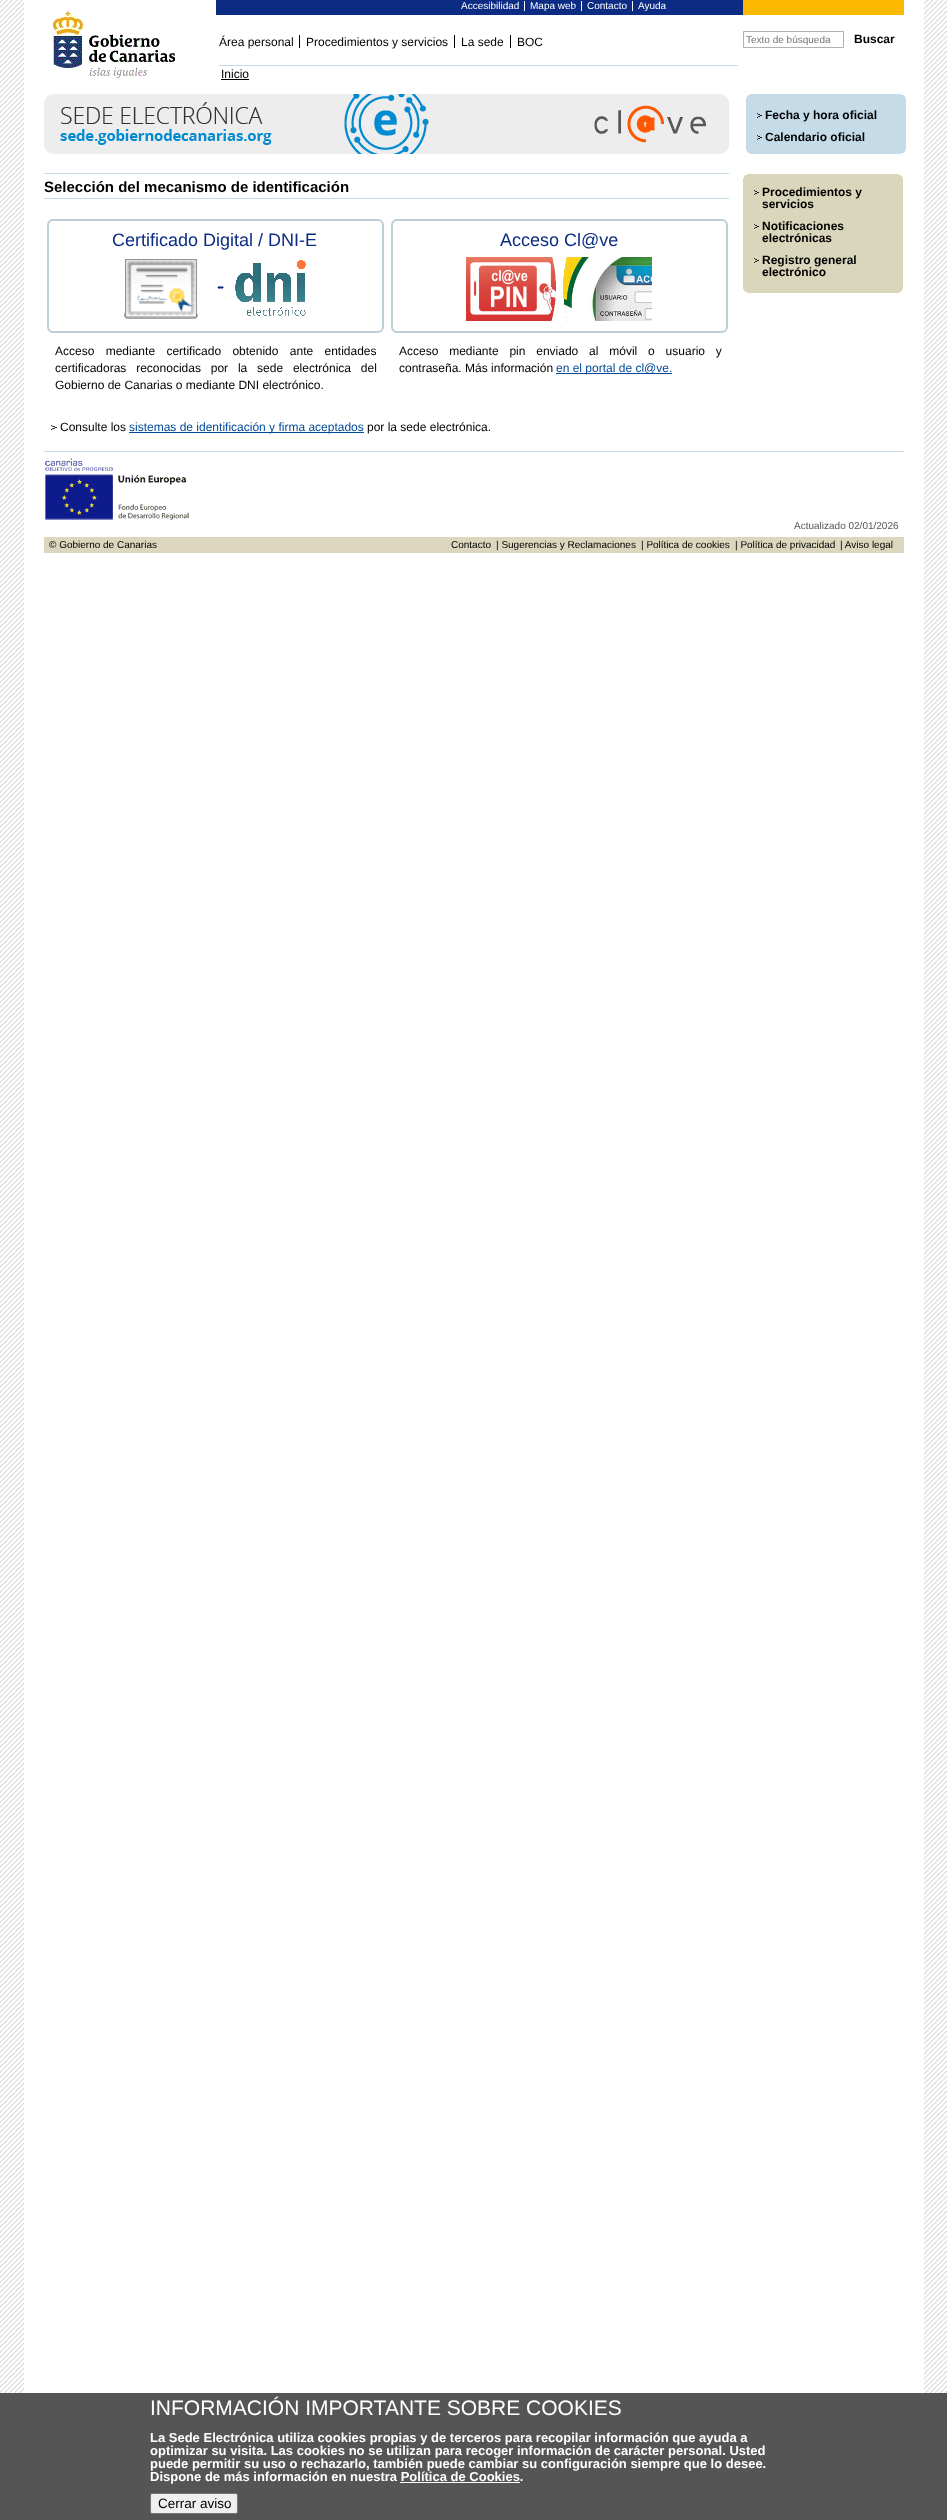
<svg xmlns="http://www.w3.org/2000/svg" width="947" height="2520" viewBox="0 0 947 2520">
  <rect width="100%" height="100%" fill="#fff"/>
  <image x="0" y="0" width="947" height="2393" href="img/1.png"/>
  <image x="53" y="11" width="122" height="67" href="img/2.png"/>
  <path d="M743 0h161v15H743z" fill="#fbba00"/>
  <path d="M216 0h527v15H216z" fill="#0c2c84"/>
  <path d="M524 1h1v10H524z" fill="#fff"/>
  <path d="M581 1h1v10H581z" fill="#fff"/>
  <path d="M632 1h1v10H632z" fill="#fff"/>
  <path d="M299 35h1v13H299z" fill="#000"/>
  <path d="M454 35h1v13H454z" fill="#000"/>
  <path d="M510 35h1v13H510z" fill="#000"/>
  <path d="M219 65h519v1H219z" fill="#c5dce8"/>
  <path d="M221 79h28v1H221z" fill="#000"/>
  <path d="M743.5 31.5h100v16H743.5z" fill="none" stroke="#b0b1b2"/>
  <image x="44" y="94" width="685" height="60" href="img/3.png"/>
  <image x="746" y="94" width="160" height="60" href="img/4.png"/>
  <image x="757" y="113" width="5" height="5" href="img/5.png"/>
  <image x="757" y="135" width="5" height="5" href="img/5.png"/>
  <path d="M44 173h685v1H44z" fill="#c5dce8"/>
  <path d="M44 198h685v1H44z" fill="#c5dce8"/>
  <rect x="48" y="220" width="335" height="112" rx="5" fill="none" stroke="#bcced6" stroke-width="2"/>
  <image x="124" y="259" width="182" height="60" href="img/6.png"/>
  <rect x="392" y="220" width="335" height="112" rx="5" fill="none" stroke="#bcced6" stroke-width="2"/>
  <image x="466" y="257" width="186" height="64" href="img/7.png"/>
  <path d="M556 373h116v1H556z" fill="#004a99"/>
  <image x="51" y="425" width="6" height="5" href="img/8.png"/>
  <path d="M129 432h235v1H129z" fill="#004a99"/>
  <image x="743" y="288" width="160" height="5" href="img/9.png"/>
  <image x="743" y="174" width="160" height="4" href="img/10.png"/>
  <path d="M743 178h160v110H743z" fill="#d9d6bc"/>
  <image x="754" y="190" width="5" height="5" href="img/11.png"/>
  <image x="754" y="224" width="5" height="5" href="img/11.png"/>
  <image x="754" y="258" width="5" height="5" href="img/11.png"/>
  <path d="M44 451h860v1H44z" fill="#c5dce8"/>
  <image x="45" y="458" width="144" height="62" href="img/12.png"/>
  <path d="M44 537h860v16H44z" fill="#dbd6bd"/>
  <path d="M0 2393h947v127H0z" fill="#555"/>
  <path d="M400 2482h120v1H400z" fill="#fff"/>
  <rect x="150.5" y="2493.5" width="87" height="20" rx="1.5" fill="#efefef" stroke="#767676"/>
  <g font-family="Liberation Sans" font-size="10" fill="#fff">
    <text x="461" y="9">Accesibilidad</text>
    <text x="530" y="9">Mapa web</text>
    <text x="587" y="9">Contacto</text>
    <text x="638" y="9">Ayuda</text>
  </g>
  <g font-family="Liberation Sans" font-size="12" fill="#000">
    <text x="219" y="46">Área personal</text>
    <text x="306" y="46">Procedimientos y servicios</text>
    <text x="461" y="46">La sede</text>
    <text x="517" y="46">BOC</text>
    <text x="221" y="78">Inicio</text>
  </g>
  <text x="746" y="43" font-family="Liberation Sans" font-size="10" fill="#757575">Texto de búsqueda</text>
  <g font-family="Liberation Sans" font-size="12" font-weight="bold" fill="#000">
    <text x="854" y="43">Buscar</text>
    <text x="765" y="119">Fecha y hora oficial</text>
    <text x="765" y="141">Calendario oficial</text>
  </g>
  <text x="44" y="192" font-family="Liberation Sans" font-size="15" font-weight="bold" fill="#000">Selección del mecanismo de identificación</text>
  <text x="112" y="246" font-family="Liberation Sans" font-size="18" fill="#0c2c84">Certificado Digital / DNI-E</text>
  <g font-family="Liberation Sans" font-size="12" fill="#000">
    <text x="55" y="355" word-spacing="8">Acceso mediante certificado obtenido ante entidades</text>
    <text x="55" y="372" word-spacing="6.5">certificadoras reconocidas por la sede electrónica del</text>
    <text x="55" y="389">Gobierno de Canarias o mediante DNI electrónico.</text>
  </g>
  <text x="500" y="246" font-family="Liberation Sans" font-size="18" fill="#0c2c84">Acceso Cl@ve</text>
  <g font-family="Liberation Sans" font-size="12" fill="#000">
    <text x="399" y="355" word-spacing="7.5">Acceso mediante pin enviado al móvil o usuario y</text>
    <text x="399" y="372">contraseña. Más información</text>
  </g>
  <text x="556" y="372" font-family="Liberation Sans" font-size="12" fill="#004a99">en el portal de cl@ve.</text>
  <text x="60" y="431" font-family="Liberation Sans" font-size="12" fill="#000">Consulte los</text>
  <text x="129" y="431" font-family="Liberation Sans" font-size="12" fill="#004a99">sistemas de identificación y firma aceptados</text>
  <text x="367" y="431" font-family="Liberation Sans" font-size="12" fill="#000">por la sede electrónica.</text>
  <g font-family="Liberation Sans" font-size="12" font-weight="bold" fill="#000">
    <text x="762" y="196">Procedimientos y</text>
    <text x="762" y="208">servicios</text>
    <text x="762" y="230">Notificaciones</text>
    <text x="762" y="242">electrónicas</text>
    <text x="762" y="264">Registro general</text>
    <text x="762" y="276">electrónico</text>
  </g>
  <text x="794" y="529" font-family="Liberation Sans" font-size="10" fill="#555">Actualizado 02/01/2026</text>
  <g font-family="Liberation Sans" font-size="10" fill="#000">
    <text x="49" y="548">© Gobierno de Canarias</text>
    <text x="451" y="548">Contacto</text>
    <text x="496" y="548">| Sugerencias y Reclamaciones</text>
    <text x="641" y="548">| Política de cookies</text>
    <text x="735" y="548">| Política de privacidad</text>
    <text x="840" y="548">| Aviso legal</text>
  </g>
  <text x="150" y="2415" font-family="Liberation Sans" font-size="21" fill="#fff">INFORMACIÓN IMPORTANTE SOBRE COOKIES</text>
  <g font-family="Liberation Sans" font-size="13" font-weight="bold" fill="#fff">
    <text x="150" y="2442">La Sede Electrónica utiliza cookies propias y de terceros para recopilar información que ayuda a</text>
    <text x="150" y="2455">optimizar su visita. Las cookies no se utilizan para recoger información de carácter personal. Usted</text>
    <text x="150" y="2468">puede permitir su uso o rechazarlo, también puede cambiar su configuración siempre que lo desee.</text>
    <text x="150" y="2481">Dispone de más información en nuestra Política de Cookies.</text>
  </g>
  <text x="158" y="2508" font-family="Liberation Sans" font-size="13.5" fill="#000">Cerrar aviso</text>
</svg>
